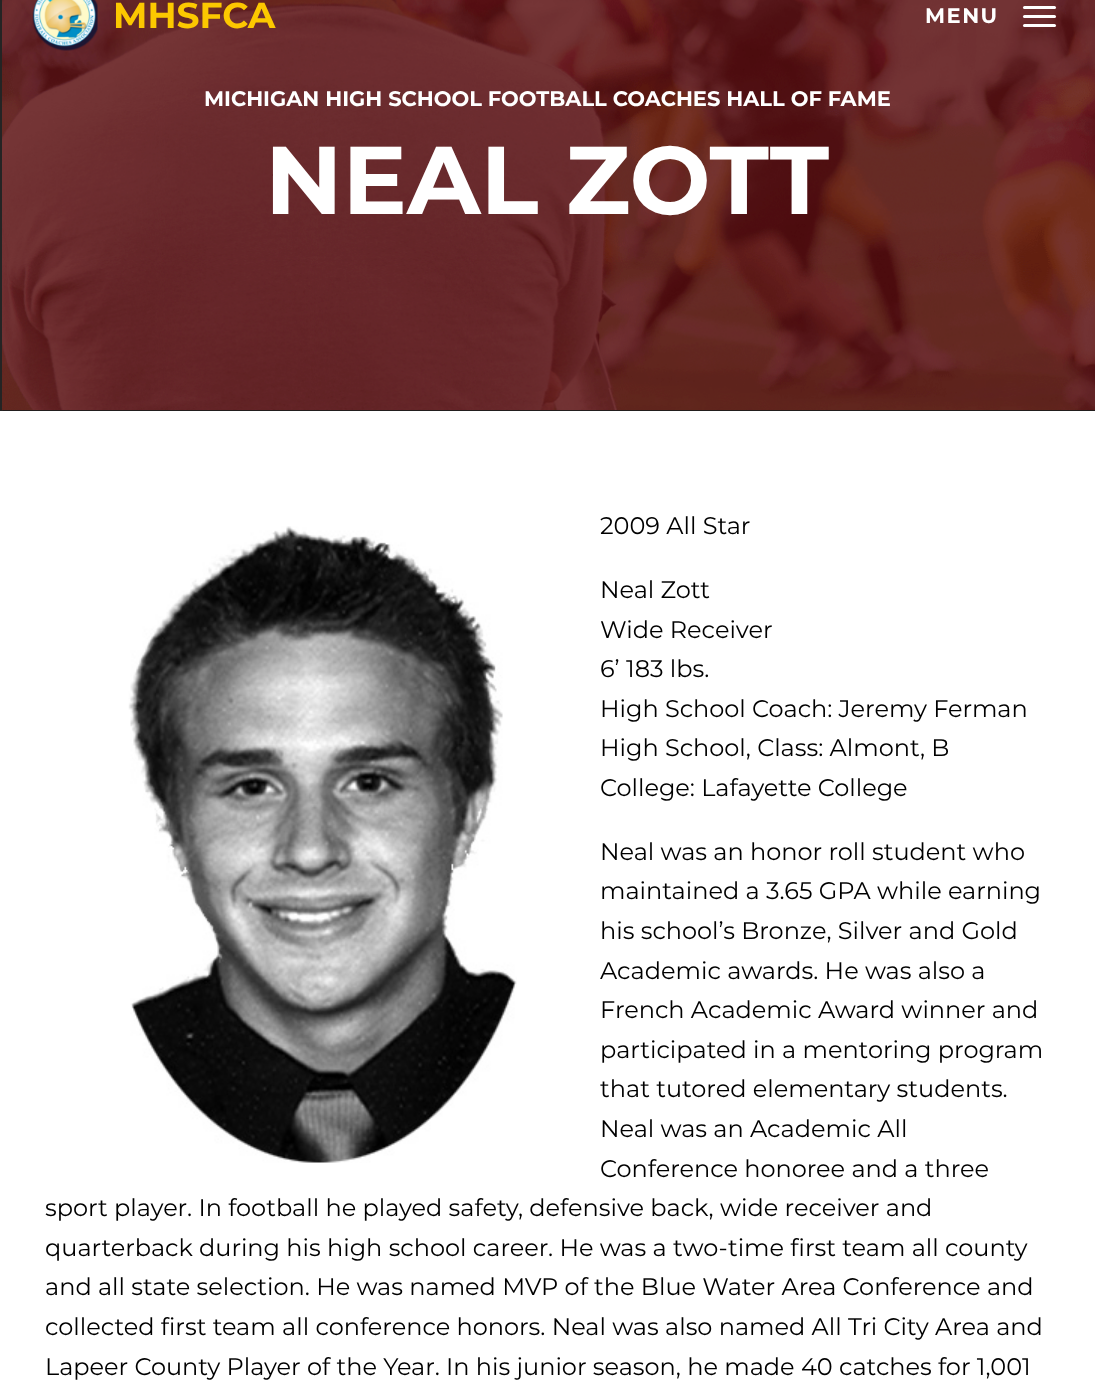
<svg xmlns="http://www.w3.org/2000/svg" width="1095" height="1383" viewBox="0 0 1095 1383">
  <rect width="100%" height="100%" fill="#fff"/>
  <image x="0" y="0" width="1095" height="411" href="img/1.png"/>
  <image x="32" y="0" width="66" height="51" href="img/2.png"/>
  <rect x="1023" y="6" width="33" height="3" rx="1.5" fill="#fff"/>
  <rect x="1023" y="15" width="33" height="3" rx="1.5" fill="#fff"/>
  <rect x="1023" y="24" width="33" height="3" rx="1.5" fill="#fff"/>
  <image x="128" y="526" width="389" height="637" href="img/3.png"/>
  <text x="113" y="28" font-family="Montserrat" font-size="36" font-weight="bold" fill="#fcc800">MHSFCA</text>
  <text x="925" y="23" font-family="Montserrat" font-size="21" font-weight="bold" letter-spacing="1.5" fill="#fff">MENU</text>
  <text x="204" y="106" font-family="Montserrat" font-size="21" font-weight="bold" fill="#fff">MICHIGAN HIGH SCHOOL FOOTBALL COACHES HALL OF FAME</text>
  <text x="265" y="214" font-family="Montserrat" font-size="96" font-weight="bold" fill="#fff">NEAL ZOTT</text>
  <g font-family="Montserrat" font-size="24" fill="#000">
    <text x="600" y="534">2009 All Star</text>
    <text x="600" y="598">Neal Zott</text>
    <text x="600" y="638">Wide Receiver</text>
    <text x="600" y="677">6’ 183 lbs.</text>
    <text x="600" y="717">High School Coach: Jeremy Ferman</text>
    <text x="600" y="756">High School, Class: Almont, B</text>
    <text x="600" y="796">College: Lafayette College</text>
    <text x="600" y="860">Neal was an honor roll student who</text>
    <text x="600" y="899">maintained a 3.65 GPA while earning</text>
    <text x="600" y="939">his school’s Bronze, Silver and Gold</text>
    <text x="600" y="979">Academic awards. He was also a</text>
    <text x="600" y="1018">French Academic Award winner and</text>
    <text x="600" y="1058">participated in a mentoring program</text>
    <text x="600" y="1097">that tutored elementary students.</text>
    <text x="600" y="1137">Neal was an Academic All</text>
    <text x="600" y="1177">Conference honoree and a three</text>
    <text x="45" y="1216">sport player. In football he played safety, defensive back, wide receiver and</text>
    <text x="45" y="1256">quarterback during his high school career. He was a two-time first team all county</text>
    <text x="45" y="1295">and all state selection. He was named MVP of the Blue Water Area Conference and</text>
    <text x="45" y="1335">collected first team all conference honors. Neal was also named All Tri City Area and</text>
    <text x="45" y="1375">Lapeer County Player of the Year. In his junior season, he made 40 catches for 1,001</text>
  </g>
</svg>
